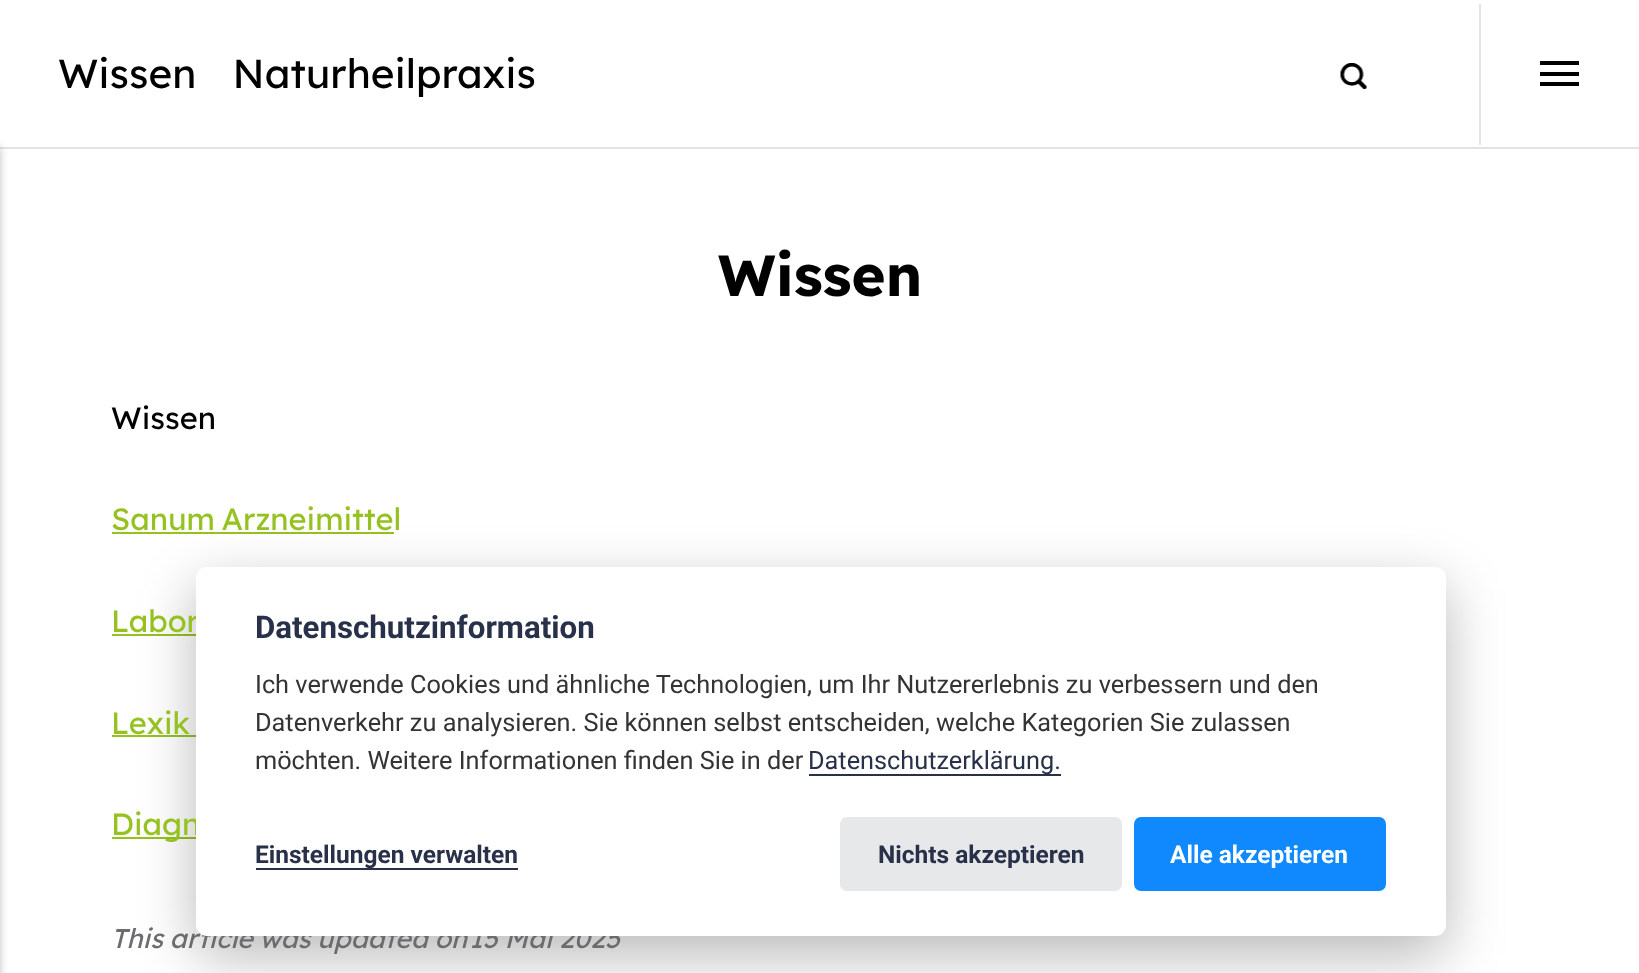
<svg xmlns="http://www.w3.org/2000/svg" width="1639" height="973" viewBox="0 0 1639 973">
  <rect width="100%" height="100%" fill="#fff"/>
  <path d="M0 147h1639v2H0z" fill="#e3e3e3"/>
  <image x="1340" y="63" width="27" height="27" href="img/1.png"/>
  <path d="M1479 4h2v141H1479z" fill="#e3e3e3"/>
  <path d="M1540 72h39v4H1540z" fill="#000"/>
  <path d="M1540 61h39v4H1540z" fill="#000"/>
  <path d="M1540 82h39v4H1540z" fill="#000"/>
  <path d="M-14 147h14v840H-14z" fill="#00000040" filter="blur(4.5px)"/>
  <path d="M112 532h282v2H112z" fill="#95c221"/>
  <path d="M112 634h84v2H112z" fill="#95c221"/>
  <path d="M112 735h84v2H112z" fill="#95c221"/>
  <path d="M112 837h84v2H112z" fill="#95c221"/>
  <rect x="196" y="586" width="1250" height="370" rx="11" fill="#02020347" filter="blur(28px)"/>
  <text x="58" y="88" word-spacing="25" font-family="Lexend" font-size="40.5" fill="#000">Wissen Naturheilpraxis</text>
  <text x="718" y="296" font-family="Lexend" font-size="58" font-weight="bold" fill="#000">Wissen</text>
  <text x="111" y="429" font-family="Lexend" font-size="30.75" fill="#000">Wissen</text>
  <g font-family="Lexend" font-size="30.75" fill="#95c221">
    <text x="111" y="530" word-spacing="-2">Sanum Arzneimittel</text>
    <text x="111" y="632">Labor</text>
    <text x="111" y="734">Lexik</text>
    <text x="111" y="835">Diagn</text>
  </g>
  <g font-family="Lexend" font-size="27" font-style="italic" fill="#6c6c6f">
    <text x="111" y="948" word-spacing="-1">This article was updated on</text>
    <text x="469" y="948" word-spacing="-1">15 Mai 2025</text>
  </g>
  <rect x="196" y="567" width="1250" height="369" rx="11" fill="#fff"/>
  <text x="255" y="638" font-family="Roboto" font-size="31.25" font-weight="bold" fill="#283149">Datenschutzinformation</text>
  <g font-family="Roboto" font-size="25.3" fill="#343435">
    <text x="255" y="693">Ich verwende Cookies und ähnliche Technologien, um Ihr Nutzererlebnis zu verbessern und den</text>
    <text x="255" y="731">Datenverkehr zu analysieren. Sie können selbst entscheiden, welche Kategorien Sie zulassen</text>
    <text x="255" y="769">möchten. Weitere Informationen finden Sie in der</text>
  </g>
  <path d="M809 774h252v2H809z" fill="#283149"/>
  <text x="808" y="769" font-family="Roboto" font-size="25.3" fill="#283149">Datenschutzerklärung.</text>
  <path d="M256 868h262v2H256z" fill="#283149"/>
  <text x="255" y="863" font-family="Roboto" font-size="24.5" font-weight="bold" fill="#283149">Einstellungen verwalten</text>
  <rect x="840" y="817" width="282" height="74" rx="7" fill="#e7e8ea"/>
  <text x="878" y="863" font-family="Roboto" font-size="24.5" font-weight="bold" fill="#283149">Nichts akzeptieren</text>
  <rect x="1134" y="817" width="252" height="74" rx="7" fill="#1089ff"/>
  <text x="1170" y="863" font-family="Roboto" font-size="24.5" font-weight="bold" fill="#fff">Alle akzeptieren</text>
</svg>
